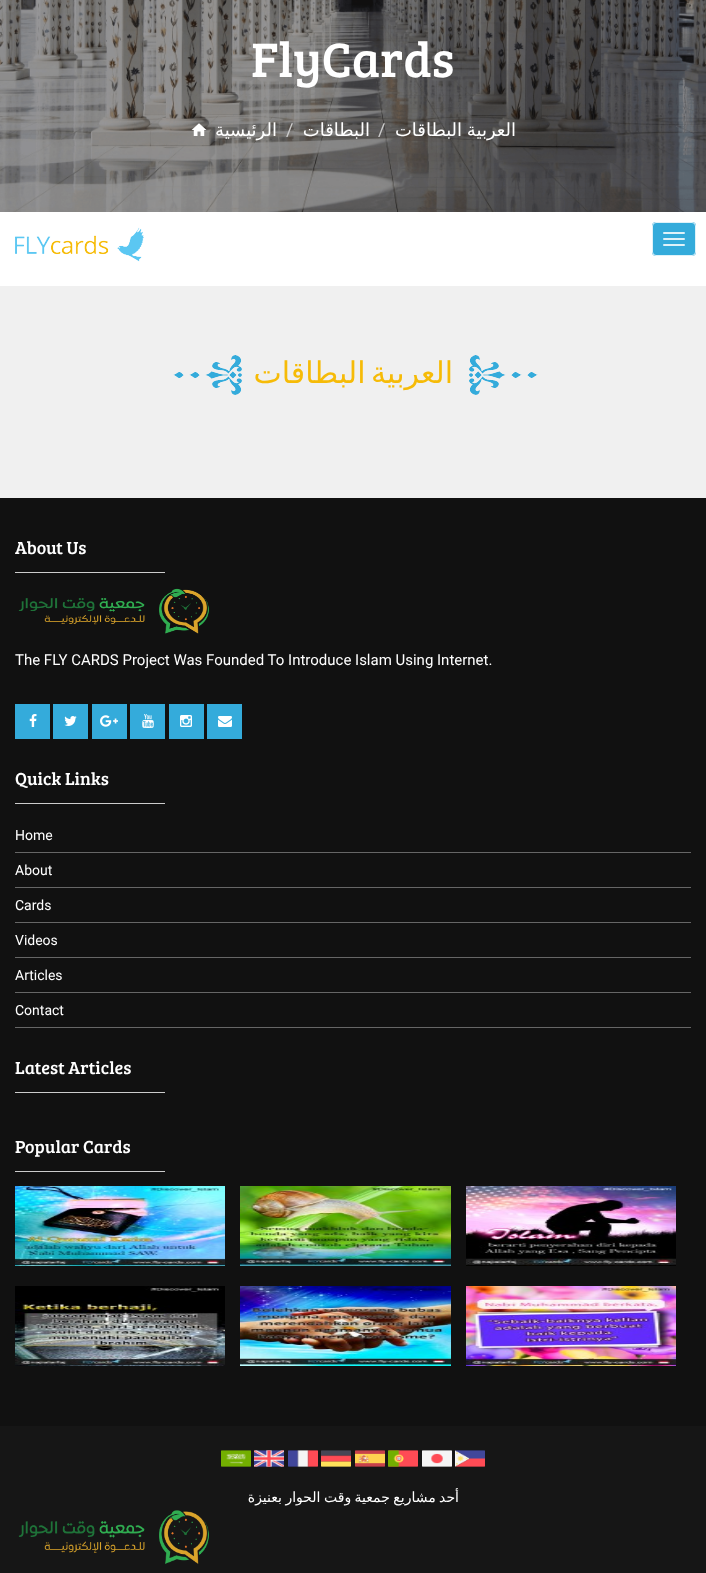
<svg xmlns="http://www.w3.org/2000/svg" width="706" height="1573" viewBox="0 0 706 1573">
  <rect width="100%" height="100%" fill="#fff"/>
  <image x="0" y="0" width="706" height="212" href="img/1.png"/>
  <image x="191" y="123" width="16" height="13" href="img/2.png"/>
  <image x="15" y="227" width="129" height="35" href="img/3.png"/>
  <rect x="652" y="222" width="44" height="34" rx="4" fill="#34abdb"/>
  <rect x="652.5" y="222.5" width="43" height="33" rx="3.5" fill="none" stroke="#ffffffd6"/>
  <rect x="663" y="232" width="22" height="2" rx="1" fill="#dff2f9"/>
  <rect x="663" y="238" width="22" height="2" rx="1" fill="#dff2f9"/>
  <rect x="663" y="244" width="22" height="2" rx="1" fill="#dff2f9"/>
  <path d="M0 286h706v212H0z" fill="#f0f0f0"/>
  <image x="173" y="355" width="69" height="40" href="img/4.png"/>
  <image x="469" y="355" width="69" height="40" href="img/5.png"/>
  <path d="M0 498h706v928H0z" fill="#111"/>
  <path d="M15 572h150v1H15z" fill="#ccc"/>
  <image x="18" y="588" width="191" height="46" href="img/6.png"/>
  <path d="M15 704h35v35H15z" fill="#34abdb"/>
  <image x="29" y="714" width="8" height="13" href="img/7.png"/>
  <path d="M53 704h35v35H53z" fill="#34abdb"/>
  <image x="64" y="716" width="13" height="10" href="img/8.png"/>
  <path d="M92 704h35v35H92z" fill="#34abdb"/>
  <image x="100" y="715" width="18" height="12" href="img/9.png"/>
  <path d="M130 704h35v35H130z" fill="#34abdb"/>
  <image x="142" y="714" width="12" height="14" href="img/10.png"/>
  <path d="M169 704h35v35H169z" fill="#34abdb"/>
  <image x="180" y="715" width="12" height="12" href="img/11.png"/>
  <path d="M207 704h35v35H207z" fill="#34abdb"/>
  <image x="218" y="716" width="14" height="11" href="img/12.png"/>
  <path d="M15 803h150v1H15z" fill="#ccc"/>
  <path d="M15 852h676v1H15z" fill="#666"/>
  <path d="M15 887h676v1H15z" fill="#666"/>
  <path d="M15 922h676v1H15z" fill="#666"/>
  <path d="M15 957h676v1H15z" fill="#666"/>
  <path d="M15 992h676v1H15z" fill="#666"/>
  <path d="M15 1027h676v1H15z" fill="#666"/>
  <path d="M15 1092h150v1H15z" fill="#ccc"/>
  <path d="M15 1171h150v1H15z" fill="#ccc"/>
  <image x="15" y="1186" width="210" height="80" href="img/13.png"/>
  <image x="240" y="1186" width="211" height="80" href="img/14.png"/>
  <image x="466" y="1186" width="210" height="80" href="img/15.png"/>
  <image x="15" y="1286" width="210" height="80" href="img/16.png"/>
  <image x="240" y="1286" width="211" height="80" href="img/17.png"/>
  <image x="466" y="1286" width="210" height="80" href="img/18.png"/>
  <path d="M0 1426h706v147H0z" fill="#161616"/>
  <image x="221" y="1450" width="30" height="17" href="img/19.png"/>
  <image x="254" y="1450" width="30" height="17" href="img/20.png"/>
  <image x="288" y="1450" width="30" height="17" href="img/21.png"/>
  <image x="321" y="1450" width="30" height="17" href="img/22.png"/>
  <image x="355" y="1450" width="30" height="17" href="img/23.png"/>
  <image x="388" y="1450" width="30" height="17" href="img/24.png"/>
  <image x="422" y="1450" width="30" height="17" href="img/25.png"/>
  <image x="455" y="1450" width="30" height="17" href="img/26.png"/>
  <image x="18" y="1510" width="191" height="54" href="img/27.png"/>
  <text x="251" y="77" font-family="Bree Serif" font-size="50" fill="#fff">FlyCards</text>
  <text x="277" y="136" font-family="DejaVu Sans" font-size="18" direction="rtl" fill="#fff">الرئيسية</text>
  <text x="286" y="136" font-family="Roboto" font-size="18" fill="#ccc">/</text>
  <text x="370" y="136" font-family="DejaVu Sans" font-size="18" direction="rtl" fill="#fff">البطاقات</text>
  <text x="378" y="136" font-family="Roboto" font-size="18" fill="#ccc">/</text>
  <text x="516" y="136" word-spacing="-1" font-family="DejaVu Sans" font-size="18" direction="rtl" fill="#fff">العربية البطاقات</text>
  <text x="453" y="383" word-spacing="-4" font-family="DejaVu Sans" font-size="30" direction="rtl" fill="#f6bb07">العربية البطاقات</text>
  <text x="15" y="554" font-family="Bree Serif" font-size="18" fill="#fff">About Us</text>
  <text x="15" y="665" font-family="Roboto" font-size="15" fill="#fff">The FLY CARDS Project Was Founded To Introduce Islam Using Internet.</text>
  <text x="15" y="785" font-family="Bree Serif" font-size="18" fill="#fff">Quick Links</text>
  <g font-family="Roboto" font-size="14" fill="#fff">
    <text x="15" y="840">Home</text>
    <text x="15" y="875">About</text>
    <text x="15" y="910">Cards</text>
    <text x="15" y="945">Videos</text>
    <text x="15" y="980">Articles</text>
    <text x="15" y="1015">Contact</text>
  </g>
  <g font-family="Bree Serif" font-size="18" fill="#fff">
    <text x="15" y="1074">Latest Articles</text>
    <text x="15" y="1153">Popular Cards</text>
  </g>
  <text x="459" y="1502" word-spacing="-1" font-family="DejaVu Sans" font-size="14" direction="rtl" fill="#fff">أحد مشاريع جمعية وقت الحوار بعنيزة</text>
</svg>
